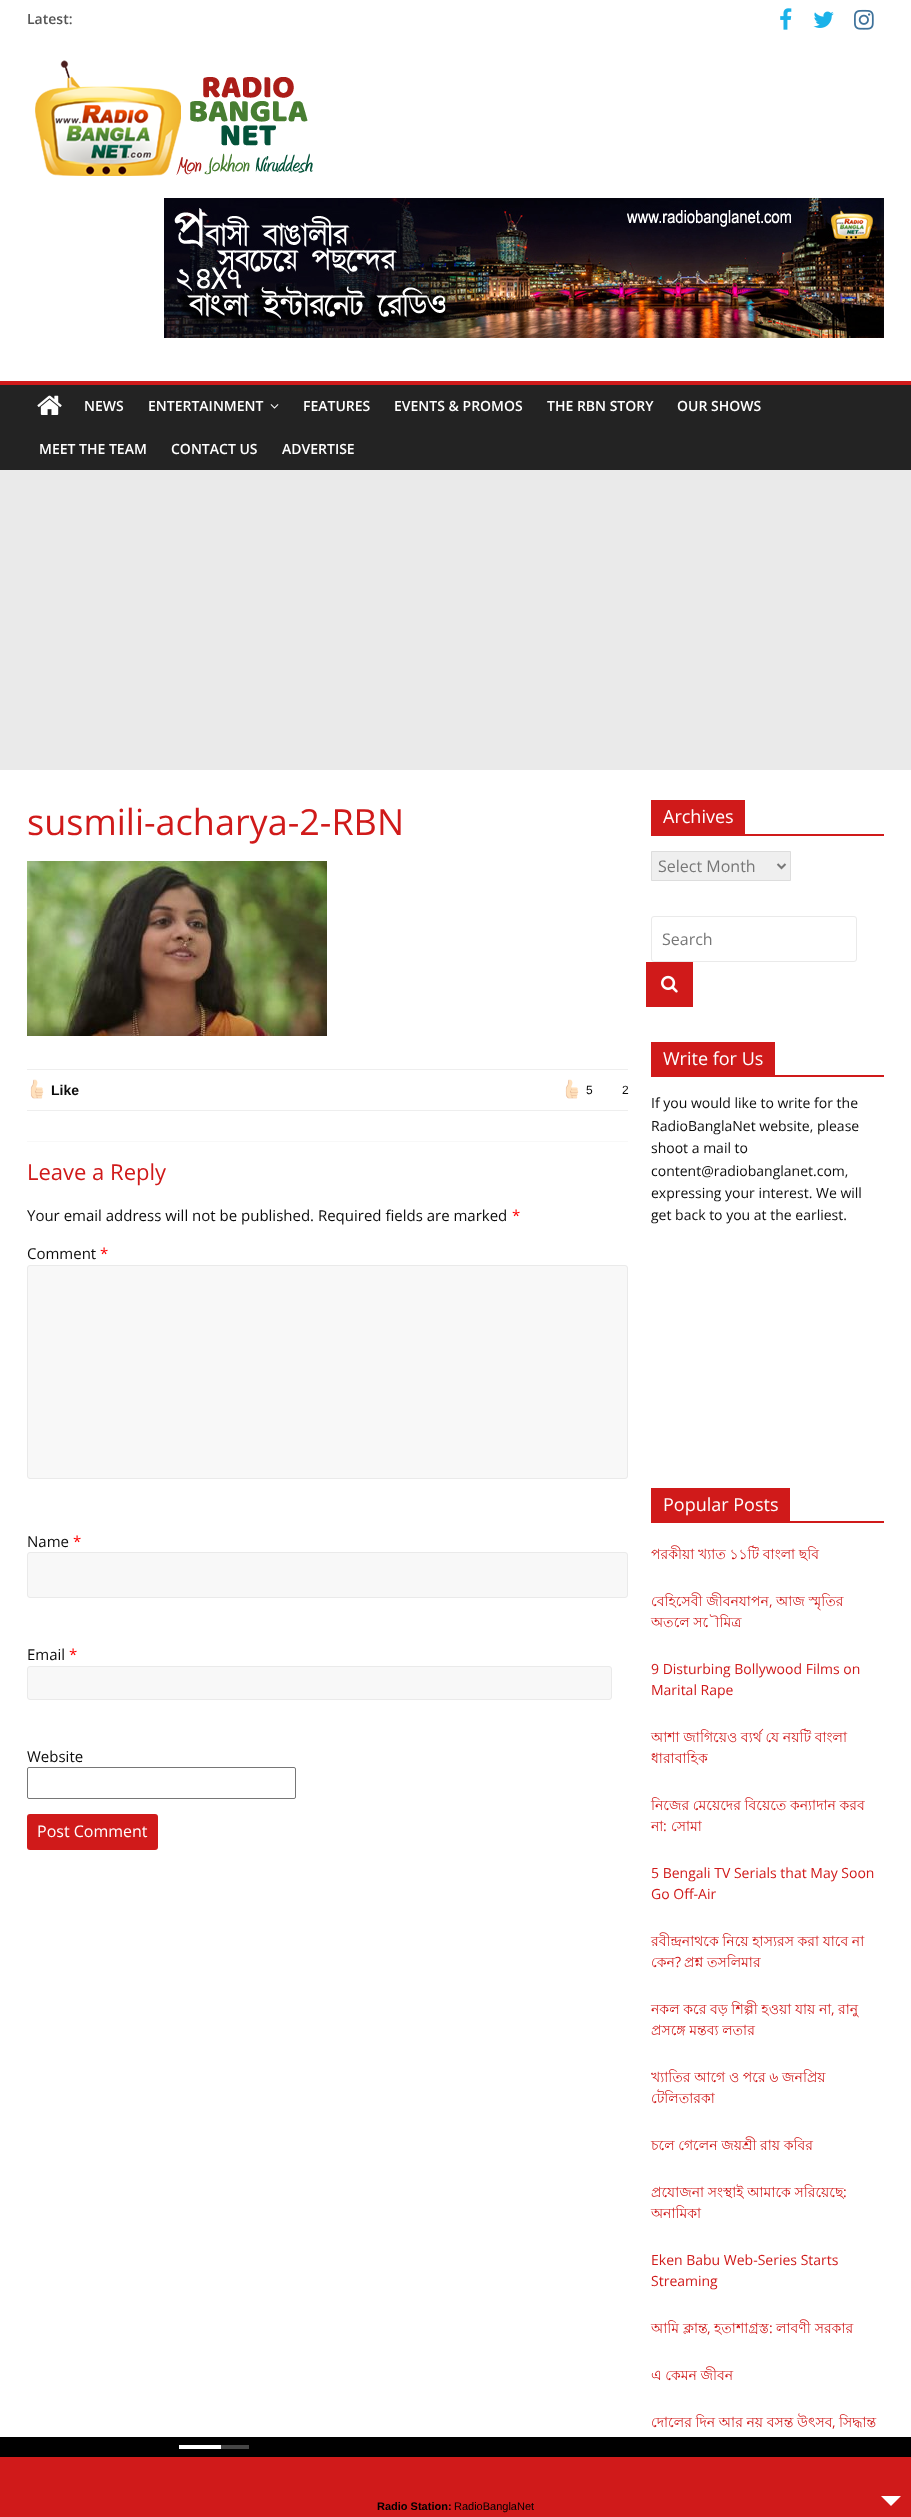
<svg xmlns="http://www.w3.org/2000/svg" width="911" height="2517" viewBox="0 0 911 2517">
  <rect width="100%" height="100%" fill="#eaeaea"/>
  <path d="M0 0h911v381H0z" fill="#fff"/>
  <image x="780" y="8" width="12" height="22" href="img/1.png"/>
  <image x="813" y="11" width="21" height="17" href="img/2.png"/>
  <image x="854" y="9" width="20" height="21" href="img/3.png"/>
  <image x="35" y="60" width="278" height="116" href="img/4.png"/>
  <image x="164" y="198" width="720" height="140" href="img/5.png"/>
  <path d="M0 385h911v85H0z" fill="#232323"/>
  <path d="M0 381h911v4H0z" fill="#d01a1a"/>
  <image x="37" y="395" width="25" height="20" href="img/6.png"/>
  <image x="270" y="404" width="9" height="5" href="img/7.png"/>
  <path d="M0 770h911v1667H0z" fill="#fff"/>
  <image x="27" y="861" width="300" height="175" href="img/8.png"/>
  <path d="M27 1069h601v1H27z" fill="#eee"/>
  <path d="M27 1110h601v1H27z" fill="#eee"/>
  <image x="30" y="1079" width="14" height="20" href="img/9.png"/>
  <image x="565" y="1079" width="14" height="20" href="img/10.png"/>
  <path d="M27 1141h601v1H27z" fill="#f8f8f8"/>
  <rect x="27.5" y="1265.5" width="600" height="213" rx="2.5" fill="#f8f8f8" stroke="#eaeaea"/>
  <rect x="27.5" y="1552.5" width="600" height="45" rx="2.5" fill="#f8f8f8" stroke="#eaeaea"/>
  <rect x="27.5" y="1666.5" width="584" height="33" rx="2.5" fill="#f8f8f8" stroke="#eaeaea"/>
  <rect x="27.5" y="1767.5" width="268" height="31" rx="1.5" fill="none" stroke="#767676"/>
  <rect x="27" y="1814" width="131" height="36" rx="3" fill="#d01a1a"/>
  <path d="M651 834h233v2H651z" fill="#d01a1a"/>
  <path d="M651 800h94v34H651z" fill="#d01a1a"/>
  <path d="M651.5 851.5h139v29H651.5z" fill="#efefef" stroke="#ddd"/>
  <path d="M777.5 864L781.5 868L785.5 864" fill="none" stroke="#777" stroke-width="2"/>
  <rect x="651.5" y="916.5" width="205" height="45" rx="2.5" fill="none" stroke="#eaeaea"/>
  <path d="M646 962h47v45H646z" fill="#d01a1a"/>
  <image x="661" y="975" width="17" height="18" href="img/11.png"/>
  <path d="M651 1075h233v2H651z" fill="#d01a1a"/>
  <path d="M651 1042h124v33H651z" fill="#d01a1a"/>
  <path d="M651 1521h233v2H651z" fill="#d01a1a"/>
  <path d="M651 1488h139v33H651z" fill="#d01a1a"/>
  <path d="M0 2457h911v60H0z" fill="#d01a1a"/>
  <path d="M881 2496H901L891 2506Z" fill="#fff"/>
  <path d="M0 2437h911v20H0z" fill="#000"/>
  <path d="M221 2445h28v4H221z" fill="#454545"/>
  <path d="M179 2445h42v4H179z" fill="#fff"/>
  <text x="27" y="24" font-family="Open Sans" font-size="14" font-weight="600" fill="#555">Latest:</text>
  <g font-family="Open Sans" font-size="14" font-weight="600" fill="#fff">
    <text x="84" y="411">NEWS</text>
    <text x="148" y="411">ENTERTAINMENT</text>
    <text x="303" y="411">FEATURES</text>
    <text x="394" y="411">EVENTS &amp; PROMOS</text>
    <text x="547" y="411">THE RBN STORY</text>
    <text x="677" y="411">OUR SHOWS</text>
    <text x="39" y="454">MEET THE TEAM</text>
    <text x="171" y="454">CONTACT US</text>
    <text x="282" y="454">ADVERTISE</text>
  </g>
  <text x="27" y="835" font-family="Open Sans" font-size="36" fill="#d01a1a">susmili-acharya-2-RBN</text>
  <text x="51" y="1095" font-family="Liberation Sans" font-size="14" font-weight="bold" fill="#0c0c0c">Like</text>
  <g font-family="Liberation Sans" font-size="12" fill="#0c0c0c">
    <text x="586" y="1094">5</text>
    <text x="622" y="1094">2</text>
  </g>
  <text x="27" y="1180" font-family="Open Sans" font-size="22" fill="#d01a1a">Leave a Reply</text>
  <text x="27" y="1221" font-family="Open Sans" font-size="15" fill="#0c0c0c">Your email address will not be published. Required fields are marked</text>
  <text x="512" y="1221" font-family="Open Sans" font-size="15" fill="#f00">*</text>
  <text x="27" y="1259" font-family="Open Sans" font-size="15" fill="#0c0c0c">Comment</text>
  <text x="100" y="1259" font-family="Open Sans" font-size="15" fill="#f00">*</text>
  <text x="27" y="1547" font-family="Open Sans" font-size="15" fill="#0c0c0c">Name</text>
  <text x="73" y="1547" font-family="Open Sans" font-size="15" fill="#f00">*</text>
  <text x="27" y="1660" font-family="Open Sans" font-size="15" fill="#0c0c0c">Email</text>
  <text x="69" y="1660" font-family="Open Sans" font-size="15" fill="#f00">*</text>
  <text x="27" y="1762" font-family="Open Sans" font-size="15" fill="#0c0c0c">Website</text>
  <text x="37" y="1837" font-family="Open Sans" font-size="16" fill="#fff">Post Comment</text>
  <text x="663" y="823" font-family="Open Sans" font-size="18" fill="#fff">Archives</text>
  <g font-family="Open Sans" font-size="16" fill="#777">
    <text x="658" y="872">Select Month</text>
    <text x="662" y="945">Search</text>
  </g>
  <text x="663" y="1065" font-family="Open Sans" font-size="18" fill="#fff">Write for Us</text>
  <g font-family="Open Sans" font-size="14" fill="#0c0c0c">
    <text x="651" y="1108">If you would like to write for the</text>
    <text x="651" y="1131">RadioBanglaNet website, please</text>
    <text x="651" y="1153">shoot a mail to</text>
    <text x="651" y="1176">content@radiobanglanet.com,</text>
    <text x="651" y="1198">expressing your interest. We will</text>
    <text x="651" y="1220">get back to you at the earliest.</text>
  </g>
  <text x="663" y="1511" font-family="Open Sans" font-size="18" fill="#fff">Popular Posts</text>
  <g font-family="Lohit Bengali" font-size="14" fill="#d01a1a">
    <text x="651" y="1559" word-spacing="-0.25">পরকীয়া খ্যাত ১১টি বাংলা ছবি</text>
    <text x="651" y="1606" word-spacing="-0.25">বেহিসেবী জীবনযাপন</text>
  </g>
  <text x="769" y="1606" font-family="Open Sans" font-size="14" fill="#d01a1a">,</text>
  <g font-family="Lohit Bengali" font-size="14" fill="#d01a1a">
    <text x="776" y="1606" word-spacing="-0.25">আজ স্মৃতির</text>
    <text x="651" y="1627" word-spacing="-0.25">অতলে সৌমিত্র</text>
  </g>
  <g font-family="Open Sans" font-size="14" fill="#d01a1a">
    <text x="651" y="1674">9 Disturbing Bollywood Films on</text>
    <text x="651" y="1695">Marital Rape</text>
  </g>
  <g font-family="Lohit Bengali" font-size="14" fill="#d01a1a">
    <text x="651" y="1742" word-spacing="-0.25">আশা জাগিয়েও ব্যর্থ যে নয়টি বাংলা</text>
    <text x="651" y="1763">ধারাবাহিক</text>
    <text x="651" y="1810" word-spacing="-0.25">নিজের মেয়েদের বিয়েতে কন্যাদান করব</text>
    <text x="651" y="1831">না</text>
  </g>
  <text x="663" y="1831" font-family="Open Sans" font-size="14" fill="#d01a1a">:</text>
  <text x="671" y="1831" font-family="Lohit Bengali" font-size="14" fill="#d01a1a">সোমা</text>
  <g font-family="Open Sans" font-size="14" fill="#d01a1a">
    <text x="651" y="1878">5 Bengali TV Serials that May Soon</text>
    <text x="651" y="1899">Go Off-Air</text>
  </g>
  <g font-family="Lohit Bengali" font-size="14" fill="#d01a1a">
    <text x="651" y="1946" word-spacing="-0.25">রবীন্দ্রনাথকে নিয়ে হাস্যরস করা যাবে না</text>
    <text x="651" y="1967">কেন</text>
  </g>
  <text x="675" y="1967" font-family="Open Sans" font-size="14" fill="#d01a1a">?</text>
  <g font-family="Lohit Bengali" font-size="14" fill="#d01a1a">
    <text x="684" y="1967" word-spacing="-0.25">প্রশ্ন তসলিমার</text>
    <text x="651" y="2014" word-spacing="-0.25">নকল করে বড় শিল্পী হওয়া যায় না</text>
  </g>
  <text x="831" y="2014" font-family="Open Sans" font-size="14" fill="#d01a1a">,</text>
  <g font-family="Lohit Bengali" font-size="14" fill="#d01a1a">
    <text x="838" y="2014">রানু</text>
    <text x="651" y="2035" word-spacing="-0.25">প্রসঙ্গে মন্তব্য লতার</text>
    <text x="651" y="2082" word-spacing="-0.25">খ্যাতির আগে ও পরে ৬ জনপ্রিয়</text>
    <text x="651" y="2103">টেলিতারকা</text>
    <text x="651" y="2150" word-spacing="-0.25">চলে গেলেন জয়শ্রী রায় কবির</text>
    <text x="651" y="2197" word-spacing="-0.25">প্রযোজনা সংস্থাই আমাকে সরিয়েছে</text>
  </g>
  <text x="843" y="2197" font-family="Open Sans" font-size="14" fill="#d01a1a">:</text>
  <text x="651" y="2218" font-family="Lohit Bengali" font-size="14" fill="#d01a1a">অনামিকা</text>
  <g font-family="Open Sans" font-size="14" fill="#d01a1a">
    <text x="651" y="2265">Eken Babu Web-Series Starts</text>
    <text x="651" y="2286">Streaming</text>
  </g>
  <text x="651" y="2333" font-family="Lohit Bengali" font-size="14" fill="#d01a1a">আমি ক্লান্ত</text>
  <text x="707" y="2333" font-family="Open Sans" font-size="14" fill="#d01a1a">,</text>
  <text x="714" y="2333" font-family="Lohit Bengali" font-size="14" fill="#d01a1a">হতাশাগ্রস্ত</text>
  <text x="769" y="2333" font-family="Open Sans" font-size="14" fill="#d01a1a">:</text>
  <g font-family="Lohit Bengali" font-size="14" fill="#d01a1a">
    <text x="776" y="2333">লাবণী সরকার</text>
    <text x="651" y="2380" word-spacing="-0.25">এ কেমন জীবন</text>
    <text x="651" y="2427" word-spacing="-0.25">দোলের দিন আর নয় বসন্ত উৎসব</text>
  </g>
  <text x="832" y="2427" font-family="Open Sans" font-size="14" fill="#d01a1a">,</text>
  <text x="839" y="2427" font-family="Lohit Bengali" font-size="14" fill="#d01a1a">সিদ্ধান্ত</text>
  <text x="377" y="2510" font-family="Liberation Sans" font-size="11" font-weight="bold" fill="#000">Radio Station:</text>
  <text x="454" y="2510" font-family="Liberation Sans" font-size="11" fill="#000">RadioBanglaNet</text>
</svg>
